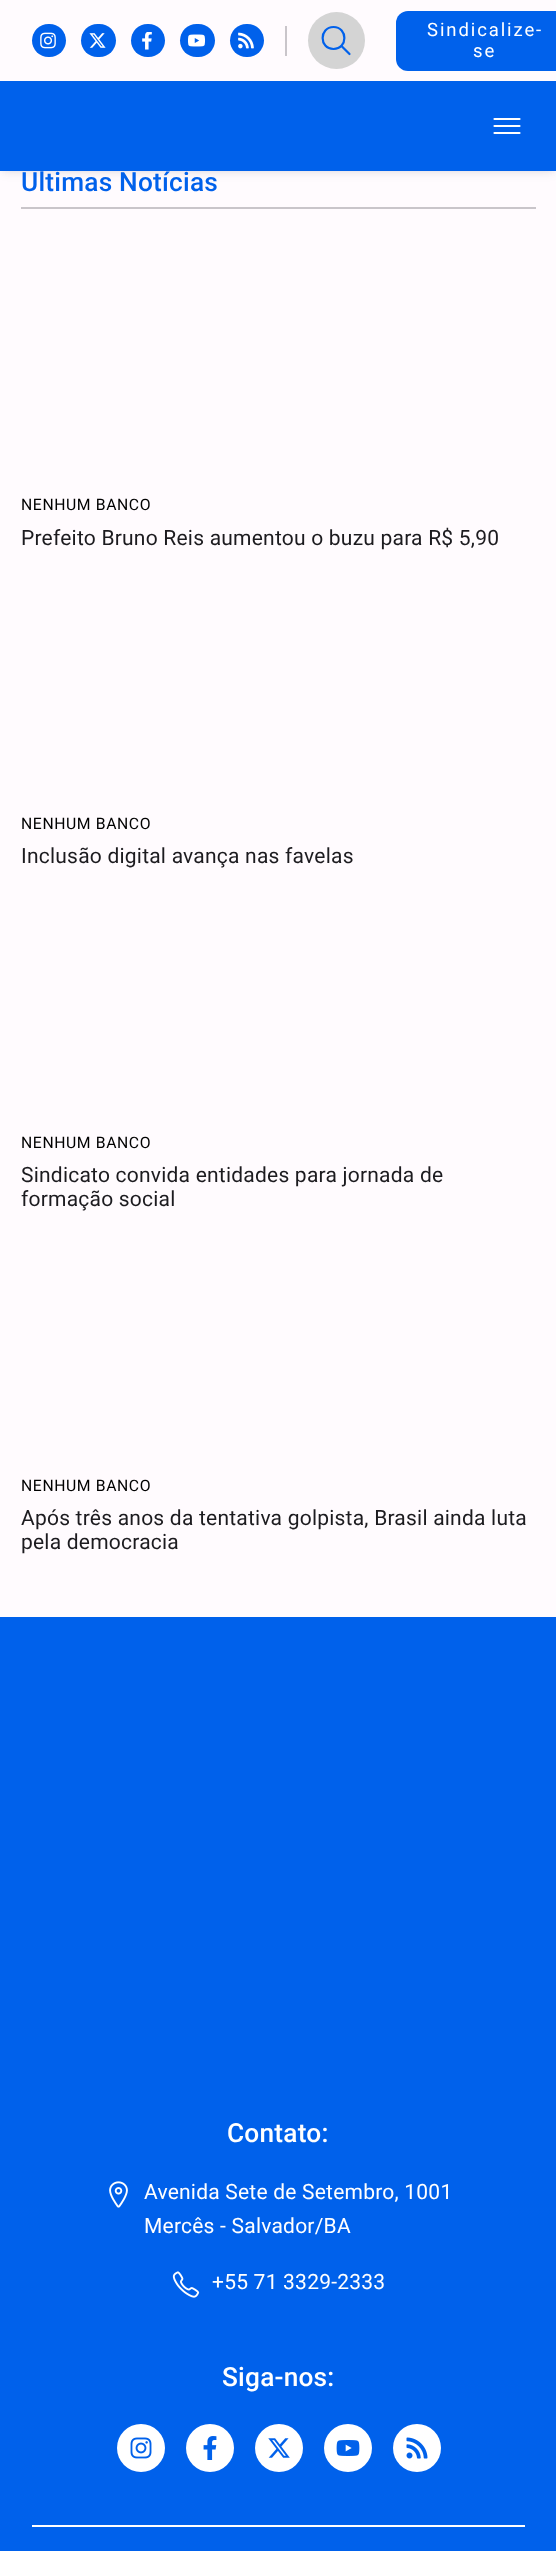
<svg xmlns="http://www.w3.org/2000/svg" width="556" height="2551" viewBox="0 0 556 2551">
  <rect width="100%" height="100%" fill="#fffbfe"/>
  <path d="M3 6h551v165H3z" fill="#1018280f" filter="blur(3px)"/>
  <path d="M3 6h551v165H3z" fill="#1018281a" filter="blur(6px)"/>
  <path d="M0 0h556v81H0z" fill="#fffbfe"/>
  <rect x="32" y="24" width="34" height="33" rx="16.5" fill="#0061eb"/>
  <image x="40" y="32" width="16" height="17" href="img/1.png"/>
  <rect x="81" y="24" width="35" height="33" rx="16.5" fill="#0061eb"/>
  <image x="89" y="33" width="17" height="15" href="img/2.png"/>
  <rect x="131" y="24" width="34" height="33" rx="16.5" fill="#0061eb"/>
  <image x="142" y="32" width="10" height="18" href="img/3.png"/>
  <rect x="180" y="24" width="35" height="33" rx="16.5" fill="#0061eb"/>
  <image x="188" y="34" width="18" height="13" href="img/4.png"/>
  <rect x="230" y="24" width="34" height="33" rx="16.5" fill="#0061eb"/>
  <image x="238" y="32" width="16" height="17" href="img/5.png"/>
  <path d="M285 26h2v30H285z" fill="#c9c5ca"/>
  <circle cx="336.5" cy="40.5" r="28.5" fill="#d4d4d4"/>
  <path d="M333.5 27C319 27 319 49 333.5 49C348 49 348 27 333.5 27Z" fill="none" stroke="#0061eb" stroke-width="2.2"/>
  <path d="M342 46.5L349.5 54" fill="none" stroke="#0061eb" stroke-width="2.2" stroke-linecap="round"/>
  <rect x="396" y="11" width="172" height="60" rx="12" fill="#0061eb"/>
  <path d="M0 81h556v90H0z" fill="#0061eb"/>
  <path d="M494.5 119H519.5M494.5 126H519.5M494.5 133H519.5" fill="none" stroke="#fff" stroke-width="2.2" stroke-linecap="round"/>
  <path d="M21 207h515v2H21z" fill="#c9c5ca"/>
  <path d="M0 1617h556v934H0z" fill="#0061eb"/>
  <image x="109" y="2181" width="19" height="27" href="img/6.png"/>
  <image x="172" y="2271" width="28" height="27" href="img/7.png"/>
  <circle cx="141" cy="2448" r="24" fill="#fff"/>
  <image x="130" y="2437" width="22" height="22" href="img/8.png"/>
  <circle cx="210" cy="2448" r="24" fill="#fff"/>
  <image x="203" y="2436" width="14" height="24" href="img/9.png"/>
  <circle cx="279" cy="2448" r="24" fill="#fff"/>
  <image x="268" y="2438" width="22" height="20" href="img/10.png"/>
  <circle cx="348" cy="2448" r="24" fill="#fff"/>
  <image x="336" y="2440" width="24" height="16" href="img/11.png"/>
  <circle cx="417" cy="2448" r="24" fill="#fff"/>
  <image x="406" y="2437" width="22" height="22" href="img/12.png"/>
  <path d="M32 2525h493v2H32z" fill="#fff"/>
  <g font-family="Roboto" font-size="18.5" letter-spacing="1.9" fill="#fff">
    <text x="427" y="36">Sindicalize-</text>
    <text x="473" y="57">se</text>
  </g>
  <text x="21" y="191" font-family="Roboto" font-size="26.25" font-weight="500" letter-spacing="0.22" fill="#0061eb">Ultimas Notícias</text>
  <text x="21" y="510" font-family="Roboto" font-size="15.75" letter-spacing="0.6" fill="#000">NENHUM BANCO</text>
  <text x="21" y="545" font-family="Roboto" font-size="21" letter-spacing="0.22" fill="#1c1b1f">Prefeito Bruno Reis aumentou o buzu para R$ 5,90</text>
  <text x="21" y="829" font-family="Roboto" font-size="15.75" letter-spacing="0.6" fill="#000">NENHUM BANCO</text>
  <text x="21" y="863" font-family="Roboto" font-size="21" letter-spacing="0.22" fill="#1c1b1f">Inclusão digital avança nas favelas</text>
  <text x="21" y="1148" font-family="Roboto" font-size="15.75" letter-spacing="0.6" fill="#000">NENHUM BANCO</text>
  <g font-family="Roboto" font-size="21" letter-spacing="0.22" fill="#1c1b1f">
    <text x="21" y="1182">Sindicato convida entidades para jornada de</text>
    <text x="21" y="1206">formação social</text>
  </g>
  <text x="21" y="1491" font-family="Roboto" font-size="15.75" letter-spacing="0.6" fill="#000">NENHUM BANCO</text>
  <g font-family="Roboto" font-size="21" letter-spacing="0.22" fill="#1c1b1f">
    <text x="21" y="1525">Após três anos da tentativa golpista, Brasil ainda luta</text>
    <text x="21" y="1549">pela democracia</text>
  </g>
  <text x="227" y="2142" font-family="Roboto" font-size="26.25" font-weight="500" letter-spacing="0.22" fill="#fff">Contato:</text>
  <g font-family="Roboto" font-size="21" letter-spacing="0.22" fill="#fff">
    <text x="144" y="2199">Avenida Sete de Setembro, 1001</text>
    <text x="144" y="2233">Mercês - Salvador/BA</text>
    <text x="212" y="2289">+55 71 3329-2333</text>
  </g>
  <text x="222" y="2386" font-family="Roboto" font-size="26.25" font-weight="500" letter-spacing="0.22" fill="#fff">Siga-nos:</text>
</svg>
